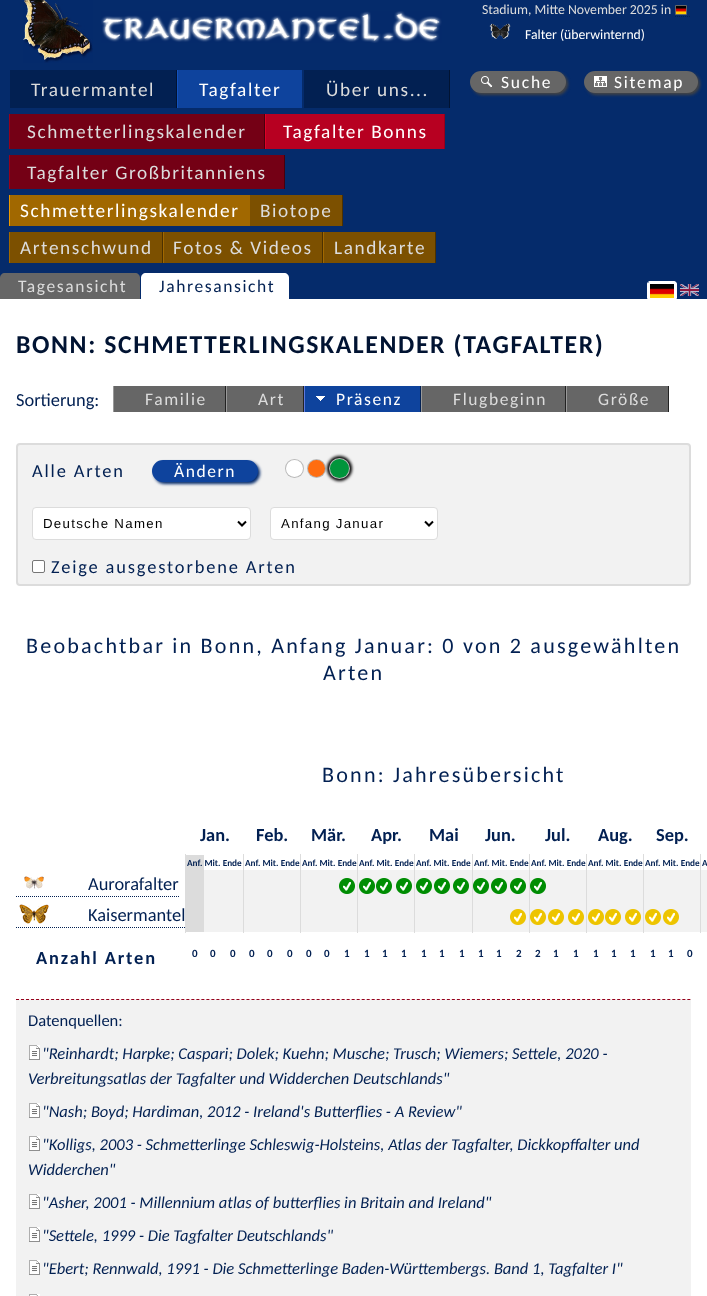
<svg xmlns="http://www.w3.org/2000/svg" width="707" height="1296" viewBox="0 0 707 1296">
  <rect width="100%" height="100%" fill="#052b6b"/>
  <image x="23" y="0" width="70" height="63" href="img/1.png"/>
  <image x="101" y="11" width="341" height="32" href="img/2.png"/>
  <path d="M675 16.5H691" fill="none" stroke="#022052" stroke-dasharray="1 1"/>
  <path d="M675.5 5.5h11v9H675.5z" fill="none" stroke="#666"/>
  <image x="676" y="6" width="10" height="8" href="img/3.png"/>
  <image x="489" y="23" width="22" height="16" href="img/4.png"/>
  <path d="M10 70h166v38H10z" fill="#022052"/>
  <path d="M176 70h1v38H176z" fill="#011332"/>
  <path d="M178 70h124v38H178z" fill="#0e439d"/>
  <path d="M177 70h1v38H177z" fill="#1252be"/>
  <path d="M304 70h145v38H304z" fill="#022052"/>
  <path d="M449 70h1v38H449z" fill="#011332"/>
  <path d="M10 114h254v35H10z" fill="#740015"/>
  <path d="M264 114h1v35H264z" fill="#47000d"/>
  <path d="M9 114h1v35H9z" fill="#97001b"/>
  <path d="M266 114h178v35H266z" fill="#b70021"/>
  <path d="M444 114h1v35H444z" fill="#97001b"/>
  <path d="M265 114h1v35H265z" fill="#de0027"/>
  <path d="M10 155h274v34H10z" fill="#740015"/>
  <path d="M284 155h1v34H284z" fill="#47000d"/>
  <path d="M9 155h1v34H9z" fill="#97001b"/>
  <path d="M10 195h240v31H10z" fill="#a16800"/>
  <path d="M9 195h1v31H9z" fill="#ed9900"/>
  <path d="M250 195h92v31H250z" fill="#7c5000"/>
  <path d="M342 195h1v31H342z" fill="#4c3100"/>
  <path d="M10 232h152v31H10z" fill="#7c5000"/>
  <path d="M162 232h1v31H162z" fill="#4c3100"/>
  <path d="M9 232h1v31H9z" fill="#a16800"/>
  <path d="M164 232h158v31H164z" fill="#7c5000"/>
  <path d="M322 232h1v31H322z" fill="#4c3100"/>
  <path d="M163 232h1v31H163z" fill="#a16800"/>
  <path d="M324 232h111v31H324z" fill="#7c5000"/>
  <path d="M435 232h1v31H435z" fill="#4c3100"/>
  <path d="M323 232h1v31H323z" fill="#a16800"/>
  <rect x="472" y="73" width="96" height="22" rx="11" fill="#444" filter="blur(1.5px)"/>
  <rect x="470" y="71" width="96" height="22" rx="11" fill="#666"/>
  <image x="481" y="76" width="12" height="12" href="img/5.png"/>
  <rect x="586" y="73" width="114" height="22" rx="11" fill="#444" filter="blur(1.5px)"/>
  <rect x="584" y="71" width="114" height="22" rx="11" fill="#666"/>
  <image x="594" y="76" width="13" height="11" href="img/6.png"/>
  <path d="M5 273H135C138 273 140 275 140 278V299H0V278C0 275 2 273 5 273Z" fill="#666"/>
  <path d="M146 273H284C287 273 289 275 289 278V299H141V278C141 275 143 273 146 273Z" fill="#fff"/>
  <image x="650" y="284" width="24" height="14" href="img/7.png"/>
  <path d="M650 281.5H674C675.5 281.5 676.5 282.5 676.5 284V298.5H647.5V284C647.5 282.5 648.5 281.5 650 281.5Z" fill="none" stroke="#fff"/>
  <path d="M649 282h27v2H649z" fill="#fff"/>
  <path d="M674 283h2v16H674z" fill="#fff"/>
  <path d="M648 283h2v16H648z" fill="#fff"/>
  <image x="680" y="284" width="19" height="12" href="img/8.png"/>
  <path d="M0 299h707v997H0z" fill="#fff"/>
  <path d="M114 386h111v26H114z" fill="#666"/>
  <path d="M225 386h1v26H225z" fill="#222"/>
  <path d="M113 386h1v26H113z" fill="#999"/>
  <path d="M227 386h76v26H227z" fill="#666"/>
  <path d="M303 386h1v26H303z" fill="#222"/>
  <path d="M226 386h1v26H226z" fill="#999"/>
  <path d="M305 386h115v26H305z" fill="#0e439d"/>
  <path d="M420 386h1v26H420z" fill="#022052"/>
  <path d="M304 386h1v26H304z" fill="#5e79dd"/>
  <image x="316" y="396" width="9" height="5" href="img/9.png"/>
  <path d="M422 386h143v26H422z" fill="#666"/>
  <path d="M565 386h1v26H565z" fill="#222"/>
  <path d="M421 386h1v26H421z" fill="#999"/>
  <path d="M567 386h101v26H567z" fill="#666"/>
  <path d="M668 386h1v26H668z" fill="#222"/>
  <path d="M566 386h1v26H566z" fill="#999"/>
  <rect x="17" y="444" width="673" height="141" rx="3" fill="#f2f2f2" stroke="#dcdcdc" stroke-width="2"/>
  <rect x="154" y="462" width="106" height="22" rx="11" fill="#052b6b" filter="blur(1.5px)"/>
  <rect x="152" y="460" width="106" height="22" rx="11" fill="#0e439d"/>
  <circle cx="294.5" cy="468.5" r="9.5" fill="#b9b9b9"/>
  <circle cx="294.5" cy="468.5" r="8.5" fill="#fff"/>
  <circle cx="316.5" cy="468.5" r="9.5" fill="#b9b9b9"/>
  <circle cx="316.5" cy="468.5" r="8.5" fill="#ff6d10"/>
  <rect x="327" y="456" width="25" height="25" rx="12.5" fill="#000" filter="blur(1.5px)"/>
  <circle cx="339.5" cy="468.5" r="10.5" fill="#b9b9b9"/>
  <circle cx="339.5" cy="468.5" r="9.5" fill="#00953b"/>
  <rect x="32.5" y="507.5" width="218" height="32" rx="3.5" fill="#fff" stroke="#dcdcdc"/>
  <path d="M238 521.5L242 525.5L246 521.5" fill="none" stroke="#000" stroke-width="2"/>
  <rect x="270.5" y="507.5" width="167" height="32" rx="3.5" fill="#fff" stroke="#dcdcdc"/>
  <path d="M425 521.5L429 525.5L433 521.5" fill="none" stroke="#000" stroke-width="2"/>
  <rect x="32.5" y="560.5" width="12" height="12" rx="1.5" fill="#fff" stroke="#767676"/>
  <path d="M186 855h18v77H186z" fill="#dcdcdc"/>
  <path d="M16 896.5H179" fill="none" stroke="#022052" stroke-dasharray="1 1"/>
  <image x="24" y="876" width="20" height="13" href="img/10.png"/>
  <path d="M204 870h39v31H204z" fill="#f2f2f2"/>
  <path d="M244 870h56v31H244z" fill="#f2f2f2"/>
  <path d="M301 870h56v31H301z" fill="#f2f2f2"/>
  <path d="M358 870h56v31H358z" fill="#f2f2f2"/>
  <image x="359" y="878" width="16" height="16" href="img/11.png"/>
  <path d="M415 870h57v31H415z" fill="#f2f2f2"/>
  <image x="416" y="878" width="16" height="16" href="img/11.png"/>
  <path d="M473 870h56v31H473z" fill="#f2f2f2"/>
  <image x="473" y="878" width="16" height="16" href="img/11.png"/>
  <path d="M530 870h56v31H530z" fill="#f2f2f2"/>
  <image x="530" y="878" width="16" height="16" href="img/11.png"/>
  <path d="M587 870h56v31H587z" fill="#f2f2f2"/>
  <path d="M644 870h56v31H644z" fill="#f2f2f2"/>
  <path d="M701 870h6v62H701z" fill="#f2f2f2"/>
  <image x="339" y="878" width="16" height="16" href="img/11.png"/>
  <image x="376" y="878" width="16" height="16" href="img/11.png"/>
  <image x="396" y="878" width="16" height="16" href="img/11.png"/>
  <image x="434" y="878" width="16" height="16" href="img/11.png"/>
  <image x="453" y="878" width="16" height="16" href="img/11.png"/>
  <image x="491" y="878" width="16" height="16" href="img/11.png"/>
  <image x="510" y="878" width="16" height="16" href="img/11.png"/>
  <path d="M16 927.5H185" fill="none" stroke="#022052" stroke-dasharray="1 1"/>
  <image x="19" y="904" width="30" height="20" href="img/12.png"/>
  <path d="M185 854h1v79H185z" fill="#dcdcdc"/>
  <path d="M204 901h39v31H204z" fill="#f2f2f2"/>
  <path d="M244 901h56v31H244z" fill="#f2f2f2"/>
  <path d="M243 854h1v79H243z" fill="#dcdcdc"/>
  <path d="M301 901h56v31H301z" fill="#f2f2f2"/>
  <path d="M300 854h1v79H300z" fill="#dcdcdc"/>
  <path d="M358 901h56v31H358z" fill="#f2f2f2"/>
  <path d="M357 854h1v79H357z" fill="#dcdcdc"/>
  <path d="M415 901h57v31H415z" fill="#f2f2f2"/>
  <path d="M414 854h1v79H414z" fill="#dcdcdc"/>
  <path d="M473 901h56v31H473z" fill="#f2f2f2"/>
  <path d="M472 854h1v79H472z" fill="#dcdcdc"/>
  <path d="M530 901h56v31H530z" fill="#f2f2f2"/>
  <image x="530" y="909" width="16" height="16" href="img/13.png"/>
  <path d="M529 854h1v79H529z" fill="#dcdcdc"/>
  <path d="M587 901h56v31H587z" fill="#f2f2f2"/>
  <image x="588" y="909" width="16" height="16" href="img/13.png"/>
  <path d="M586 854h1v79H586z" fill="#dcdcdc"/>
  <path d="M644 901h56v31H644z" fill="#f2f2f2"/>
  <image x="645" y="909" width="16" height="16" href="img/13.png"/>
  <path d="M643 854h1v79H643z" fill="#dcdcdc"/>
  <path d="M700 854h1v79H700z" fill="#dcdcdc"/>
  <image x="510" y="909" width="16" height="16" href="img/13.png"/>
  <image x="548" y="909" width="16" height="16" href="img/13.png"/>
  <image x="568" y="909" width="16" height="16" href="img/13.png"/>
  <image x="605" y="909" width="16" height="16" href="img/13.png"/>
  <image x="625" y="909" width="16" height="16" href="img/13.png"/>
  <image x="663" y="909" width="16" height="16" href="img/13.png"/>
  <path d="M16 999h675v297H16z" fill="#f2f2f2"/>
  <path d="M16 999.5H691" fill="none" stroke="#97001b" stroke-dasharray="3 2.01"/>
  <image x="29" y="1045" width="11" height="15" href="img/14.png"/>
  <image x="29" y="1103" width="11" height="15" href="img/14.png"/>
  <image x="29" y="1136" width="11" height="15" href="img/14.png"/>
  <image x="29" y="1194" width="11" height="15" href="img/14.png"/>
  <image x="29" y="1227" width="11" height="15" href="img/14.png"/>
  <image x="29" y="1260" width="11" height="15" href="img/14.png"/>
  <image x="29" y="1294" width="11" height="2" href="img/15.png"/>
  <text x="482" y="14" font-family="Carlito" font-size="13.75" fill="#dcdcdc">Stadium, Mitte November 2025 in</text>
  <text x="525" y="39" font-family="Carlito" font-size="13.75" fill="#fff">Falter (überwinternd)</text>
  <text x="31" y="96" font-family="Carlito" font-size="19.25" letter-spacing="1.6" fill="#dcdcdc">Trauermantel</text>
  <text x="199" y="96" font-family="Carlito" font-size="19.25" letter-spacing="1.6" fill="#fff">Tagfalter</text>
  <g font-family="Carlito" font-size="19.25" letter-spacing="1.6" fill="#dcdcdc">
    <text x="326" y="96">Über uns...</text>
    <text x="27" y="138">Schmetterlingskalender</text>
  </g>
  <text x="283" y="138" font-family="Carlito" font-size="19.25" letter-spacing="1.6" fill="#fff">Tagfalter Bonns</text>
  <text x="27" y="179" font-family="Carlito" font-size="19.25" letter-spacing="1.6" fill="#dcdcdc">Tagfalter Großbritanniens</text>
  <text x="20" y="217" font-family="Carlito" font-size="19.25" letter-spacing="1.6" fill="#fff">Schmetterlingskalender</text>
  <g font-family="Carlito" font-size="19.25" letter-spacing="1.6" fill="#dcdcdc">
    <text x="260" y="217">Biotope</text>
    <text x="20" y="254">Artenschwund</text>
    <text x="173" y="254">Fotos &amp; Videos</text>
    <text x="334" y="254">Landkarte</text>
  </g>
  <g font-family="Carlito" font-size="17.5" letter-spacing="1.75" fill="#fff">
    <text x="501" y="88">Suche</text>
    <text x="614" y="88">Sitemap</text>
  </g>
  <text x="18" y="292" font-family="Carlito" font-size="17.5" letter-spacing="1.6" fill="#dcdcdc">Tagesansicht</text>
  <text x="159" y="292" font-family="Carlito" font-size="17.5" letter-spacing="1.6" fill="#022052">Jahresansicht</text>
  <text x="16" y="353" font-family="Carlito" font-size="25.75" font-weight="bold" letter-spacing="1.6" fill="#011332">BONN: SCHMETTERLINGSKALENDER (TAGFALTER)</text>
  <text x="16" y="406" font-family="Carlito" font-size="18.4" fill="#022052">Sortierung:</text>
  <g font-family="Carlito" font-size="17.5" letter-spacing="1.6" fill="#dcdcdc">
    <text x="145" y="405">Familie</text>
    <text x="258" y="405">Art</text>
  </g>
  <text x="336" y="405" font-family="Carlito" font-size="17.5" letter-spacing="1.6" fill="#fff">Präsenz</text>
  <g font-family="Carlito" font-size="17.5" letter-spacing="1.6" fill="#dcdcdc">
    <text x="453" y="405">Flugbeginn</text>
    <text x="598" y="405">Größe</text>
  </g>
  <text x="32" y="477" font-family="Carlito" font-size="18.4" letter-spacing="1.85" fill="#022052">Alle Arten</text>
  <text x="174" y="477" font-family="Carlito" font-size="17.5" letter-spacing="1.6" fill="#fff">Ändern</text>
  <g font-family="Liberation Sans" font-size="13.25" letter-spacing="1.3" fill="#000">
    <text x="43" y="528">Deutsche Namen</text>
    <text x="281" y="528">Anfang Januar</text>
  </g>
  <text x="51" y="573" font-family="Carlito" font-size="18.4" letter-spacing="1.85" fill="#022052">Zeige ausgestorbene Arten</text>
  <g font-family="Carlito" font-size="22.1" letter-spacing="2.2" fill="#022052">
    <text x="26" y="653">Beobachtbar in Bonn, Anfang Januar: 0 von 2 ausgewählten</text>
    <text x="323" y="680">Arten</text>
    <text x="322" y="782">Bonn: Jahresübersicht</text>
  </g>
  <g font-family="Carlito" font-size="18.4" font-weight="bold" fill="#022052">
    <text x="200" y="841">Jan.</text>
    <text x="256" y="841">Feb.</text>
    <text x="311" y="841">Mär.</text>
    <text x="371" y="841">Apr.</text>
    <text x="429" y="841">Mai</text>
    <text x="485" y="841">Jun.</text>
    <text x="545" y="841">Jul.</text>
    <text x="598" y="841">Aug.</text>
    <text x="656" y="841">Sep.</text>
  </g>
  <g font-family="Carlito" font-size="9.25" font-weight="bold" fill="#022052">
    <text x="187" y="866">Anf. Mit. Ende</text>
    <text x="245" y="866">Anf. Mit. Ende</text>
    <text x="302" y="866">Anf. Mit. Ende</text>
    <text x="359" y="866">Anf. Mit. Ende</text>
    <text x="416" y="866">Anf. Mit. Ende</text>
    <text x="474" y="866">Anf. Mit. Ende</text>
    <text x="531" y="866">Anf. Mit. Ende</text>
    <text x="588" y="866">Anf. Mit. Ende</text>
    <text x="645" y="866">Anf. Mit. Ende</text>
    <text x="702" y="866">A</text>
  </g>
  <g font-family="Carlito" font-size="18.4" fill="#022052">
    <text x="88" y="890">Aurorafalter</text>
    <text x="88" y="921">Kaisermantel</text>
  </g>
  <text x="36" y="964" font-family="Carlito" font-size="18.4" font-weight="bold" letter-spacing="1.85" fill="#022052">Anzahl Arten</text>
  <g font-family="Carlito" font-size="11" font-weight="bold" fill="#022052">
    <text x="192" y="957">0</text>
    <text x="210" y="957">0</text>
    <text x="230" y="957">0</text>
    <text x="249" y="957">0</text>
    <text x="267" y="957">0</text>
    <text x="287" y="957">0</text>
    <text x="306" y="957">0</text>
    <text x="324" y="957">0</text>
    <text x="344" y="957">1</text>
    <text x="364" y="957">1</text>
    <text x="382" y="957">1</text>
    <text x="401" y="957">1</text>
    <text x="421" y="957">1</text>
    <text x="439" y="957">1</text>
    <text x="459" y="957">1</text>
    <text x="478" y="957">1</text>
    <text x="496" y="957">1</text>
    <text x="516" y="957">2</text>
    <text x="535" y="957">2</text>
    <text x="553" y="957">1</text>
    <text x="573" y="957">1</text>
    <text x="593" y="957">1</text>
    <text x="611" y="957">1</text>
    <text x="630" y="957">1</text>
    <text x="650" y="957">1</text>
    <text x="668" y="957">1</text>
    <text x="687" y="957">0</text>
  </g>
  <text x="28" y="1026" font-family="Carlito" font-size="16.55" fill="#022052">Datenquellen:</text>
  <g font-family="Carlito" font-size="16.55" font-style="italic" fill="#022052">
    <text x="42" y="1059">"Reinhardt; Harpke; Caspari; Dolek; Kuehn; Musche; Trusch; Wiemers; Settele, 2020 -</text>
    <text x="28" y="1084">Verbreitungsatlas der Tagfalter und Widderchen Deutschlands"</text>
    <text x="42" y="1117">"Nash; Boyd; Hardiman, 2012 - Ireland's Butterflies - A Review"</text>
    <text x="42" y="1150">"Kolligs, 2003 - Schmetterlinge Schleswig-Holsteins, Atlas der Tagfalter, Dickkopffalter und</text>
    <text x="28" y="1175">Widderchen"</text>
    <text x="42" y="1208">"Asher, 2001 - Millennium atlas of butterflies in Britain and Ireland"</text>
    <text x="42" y="1241">"Settele, 1999 - Die Tagfalter Deutschlands"</text>
    <text x="42" y="1274">"Ebert; Rennwald, 1991 - Die Schmetterlinge Baden-Württembergs. Band 1, Tagfalter I"</text>
  </g>
</svg>
